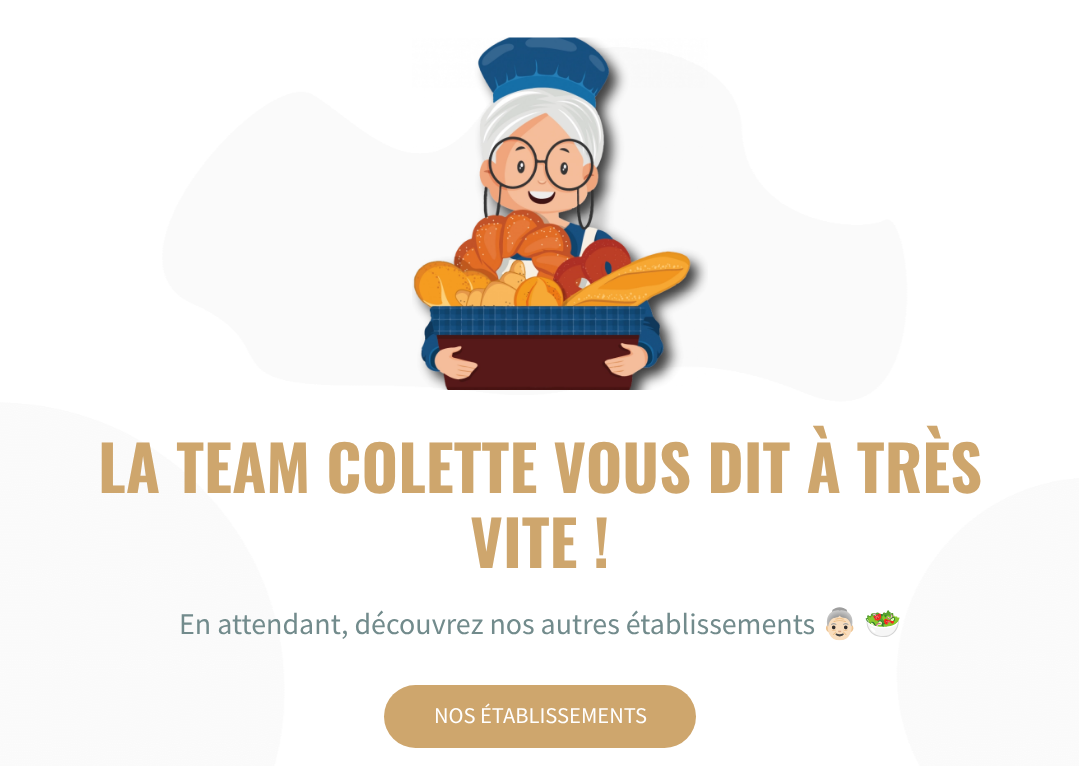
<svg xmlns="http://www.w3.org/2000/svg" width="1079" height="766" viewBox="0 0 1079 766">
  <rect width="100%" height="100%" fill="#fff"/>
  <image x="0" y="47" width="1079" height="719" href="img/1.png"/>
  <image x="412" y="37" width="296" height="353" href="img/2.png"/>
  <rect x="384" y="685" width="312" height="63" rx="31.5" fill="#cea66d"/>
  <g font-family="Oswald" font-size="62.5" font-weight="bold" fill="#cea66d">
    <text x="98" y="493">LA TEAM COLETTE VOUS DIT À TRÈS</text>
    <text x="470" y="568">VITE !</text>
  </g>
  <text x="179" y="634" font-family="Source Sans Pro" font-size="30" fill="#728b8c">En attendant, découvrez nos autres établissements</text>
  <g font-family="Noto Color Emoji" font-size="30" fill="#728b8c">
    <text x="821" y="634">👵🏻</text>
    <text x="864" y="634">🥗</text>
  </g>
  <text x="434" y="723" font-family="Source Sans Pro" font-size="22.5" fill="#fff">NOS ÉTABLISSEMENTS</text>
</svg>
